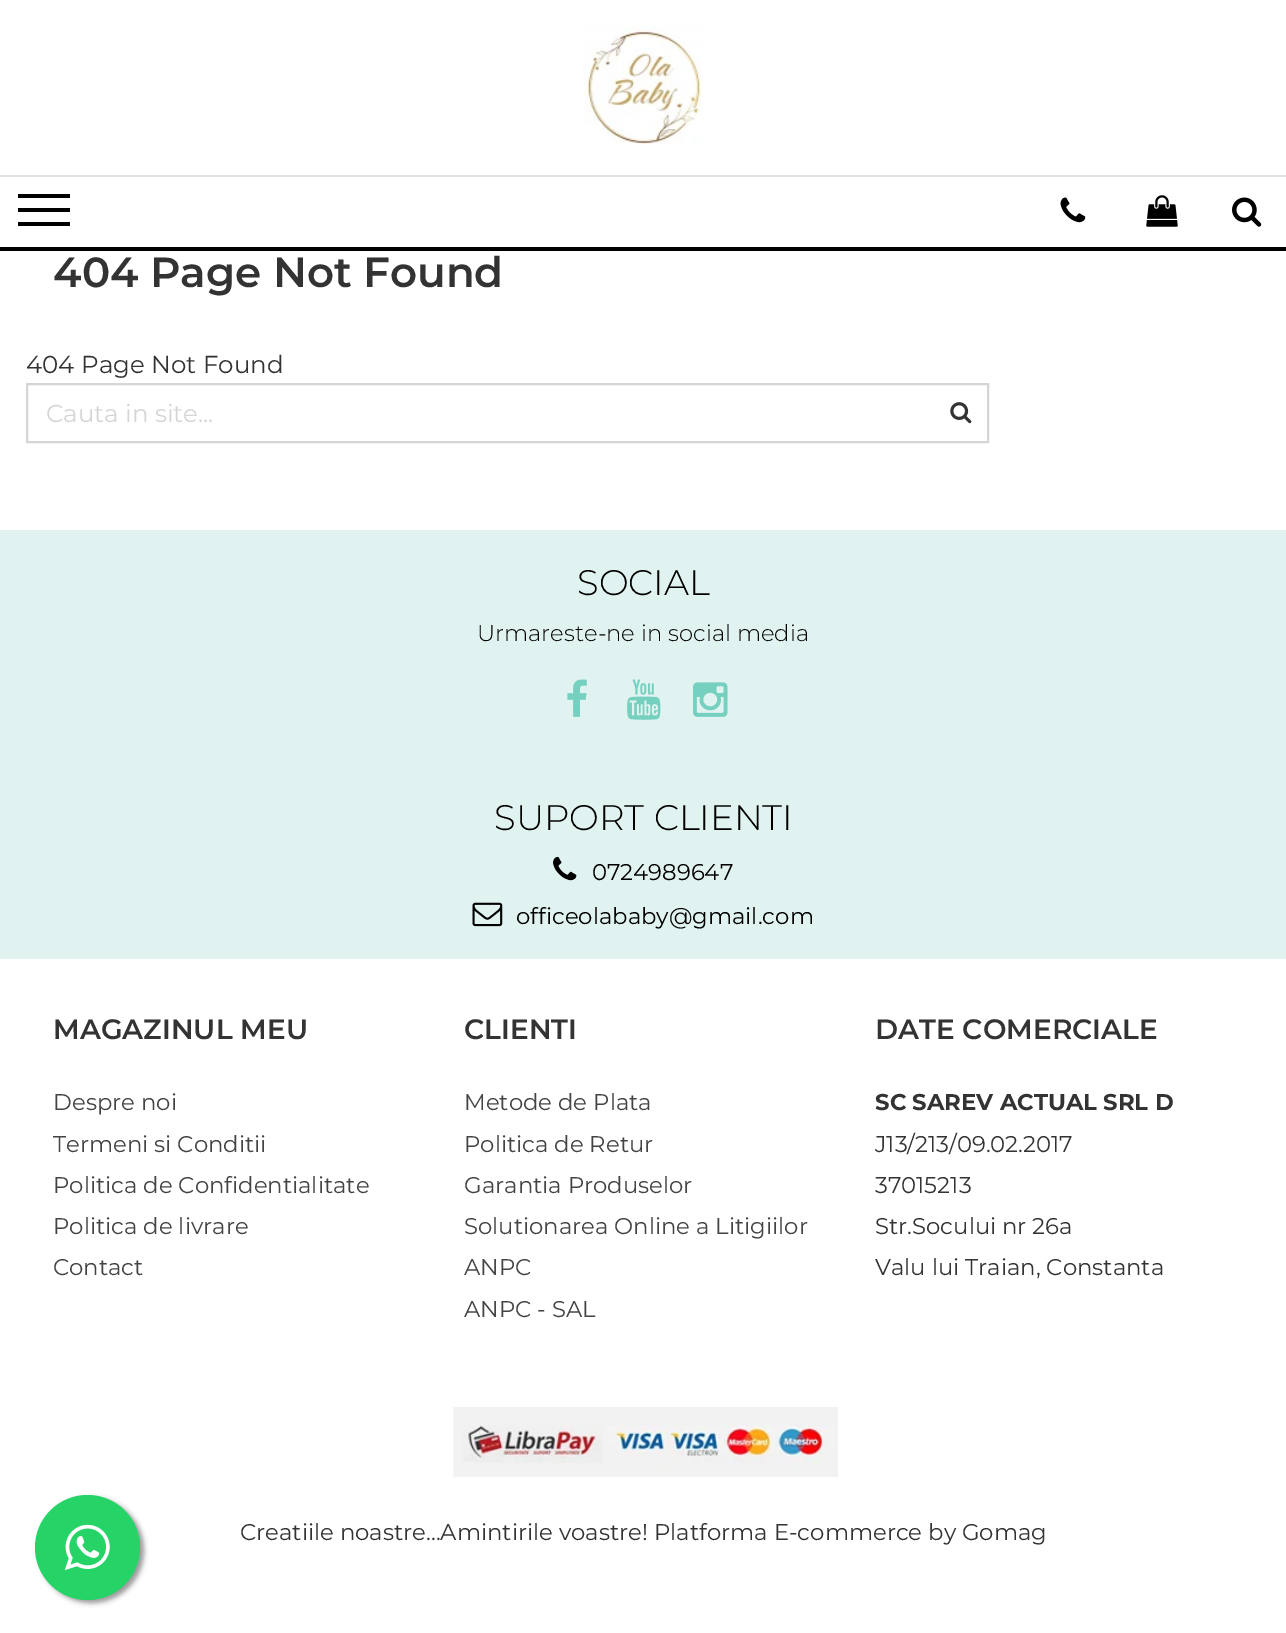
%!PS
<< /PageSize [1286 1633] /PageUsesTransparency true >> setpagedevice
/fl/fill load def
/lw/setlinewidth load def
/co { dup -16 bitshift 255 div exch dup -8 bitshift 255 and 255 div exch 255 and 255 div setrgbcolor } def
/fn { [ exch dup neg 0 0 3 -1 roll 0 0 ] selectfont } def
/tx { co fn moveto show } def
/bx { co rectfill } def
/al { dup .setfillconstantalpha .setstrokeconstantalpha } def
/ci { newpath 0 360 arc closepath } def
/rr { 5 dict begin { /r /h /w /y /x } { exch def } forall
  x r add y moveto x w add y 2 copy h add r arct x w add y h add x 1 index r arct
  x y h add x y r arct x y 2 copy exch w add exch r arct closepath end } def
/sh { 12 dict begin { /a /b /q /h /w /y /x } { exch def } forall gsave /was 0 def
  9 -2 -9 { dup b mul 4 div /e exch def 1 sub .425 mul 2.718 exch exp 1 add a .99 .min exch div /now exch def
    1 1 now sub 1 was sub div sub al /was now def
    w h .min e 2 mul add 0 gt { x e sub y e sub w e 2 mul add h e 2 mul add
      q e add b .6 mul add w h .min 2 div e add .min 0 .max rr fill } if } for grestore end } def
/im { 5 dict begin { /h /w /y /x /name } { exch def } forall
  gsave x y translate w h scale
  w h 8 [w 0 0 h 0 0] name (r) file false 3 colorimage grestore end } def
0 .pushpdf14devicefilter
0 1633 translate 1 -1 scale
4 setmiterlimit
0 0 1286 1633 16#FFFFFF bx
(media/1.raw) 583 26 119 119 im
0 175 1286 2 16#E1E1E1 bx
0 247 1286 4 16#000000 bx
18 208 52 4 16#000000 bx
18 194 52 4 16#000000 bx
18 222 52 4 16#000000 bx
(media/2.raw) 1060 197 26 26 im
(media/3.raw) 1146 195 32 32 im
(media/4.raw) 1232 197 30 30 im
16#D5D5D5 co
2 lw
27 384 961 58 rectstroke
(media/5.raw) 950 402 22 22 im
0 530 1286 429 16#E0F3F0 bx
(media/6.raw) 567 679 20 38 im
(media/7.raw) 627 679 34 41 im
(media/8.raw) 693 682 35 35 im
(media/9.raw) 553 856 24 25 im
(media/10.raw) 472 902 31 25 im
(media/11.raw) 453 1407 385 70 im
16#999999 co
39 1498 105 105 52.5 2.5 1 sh
16#25D366 co
87.5 1547.5 52.5 ci fl
(media/12.raw) 64 1524 46 47 im
(404 Page Not Found) 53 287 /Montserrat-SemiBold 42 16#333333 tx
(404 Page Not Found) 26 373 /Montserrat-Regular 24.5 16#333333 tx
(Cauta in site...) 46 422 /Montserrat-Regular 24.5 16#D5D5D5 tx
(SOCIAL) 577 595 /Montserrat-Light 35.5 16#000000 tx
(Urmareste-ne in social media) 477 641 /Montserrat-Light 22.75 16#000000 tx
(SUPORT CLIENTI) 494 830 /Montserrat-Light 35.5 16#000000 tx
(0724989647) 592 880 /Montserrat-Regular 22.75 16#000000 tx
(officeolababy@gmail.com) 516 924 /Montserrat-Regular 22.75 16#000000 tx
(MAGAZINUL MEU) 53 1039 /Montserrat-SemiBold 28 16#333333 tx
(Despre noi) 53 1110 /Montserrat-Regular 22.75 16#444444 tx
(Termeni si Conditii) 53 1152 /Montserrat-Regular 22.75 16#444444 tx
(Politica de Confidentialitate) 53 1193 /Montserrat-Regular 22.75 16#444444 tx
(Politica de livrare) 53 1234 /Montserrat-Regular 22.75 16#444444 tx
(Contact) 53 1275 /Montserrat-Regular 22.75 16#444444 tx
(CLIENTI) 464 1039 /Montserrat-SemiBold 28 16#333333 tx
(Metode de Plata) 464 1110 /Montserrat-Regular 22.75 16#444444 tx
(Politica de Retur) 464 1152 /Montserrat-Regular 22.75 16#444444 tx
(Garantia Produselor) 464 1193 /Montserrat-Regular 22.75 16#444444 tx
(Solutionarea Online a Litigiilor) 464 1234 /Montserrat-Regular 22.75 16#444444 tx
(ANPC) 464 1275 /Montserrat-Regular 22.75 16#444444 tx
(ANPC - SAL) 464 1317 /Montserrat-Regular 22.75 16#444444 tx
(DATE COMERCIALE) 875 1039 /Montserrat-SemiBold 28 16#333333 tx
(SC SAREV ACTUAL SRL D) 875 1110 /Montserrat-Bold 22.75 16#333333 tx
(J13/213/09.02.2017) 875 1152 /Montserrat-Regular 22.75 16#333333 tx
(37015213) 875 1193 /Montserrat-Regular 22.75 16#333333 tx
(Str.Socului nr 26a) 875 1234 /Montserrat-Regular 22.75 16#333333 tx
(Valu lui Traian, Constanta) 875 1275 /Montserrat-Regular 22.75 16#333333 tx
(Creatiile noastre...Amintirile voastre! Platforma E-commerce by Gomag) 240 1540 /Montserrat-Regular 22.75 16#333333 tx
.poppdf14devicefilter showpage
